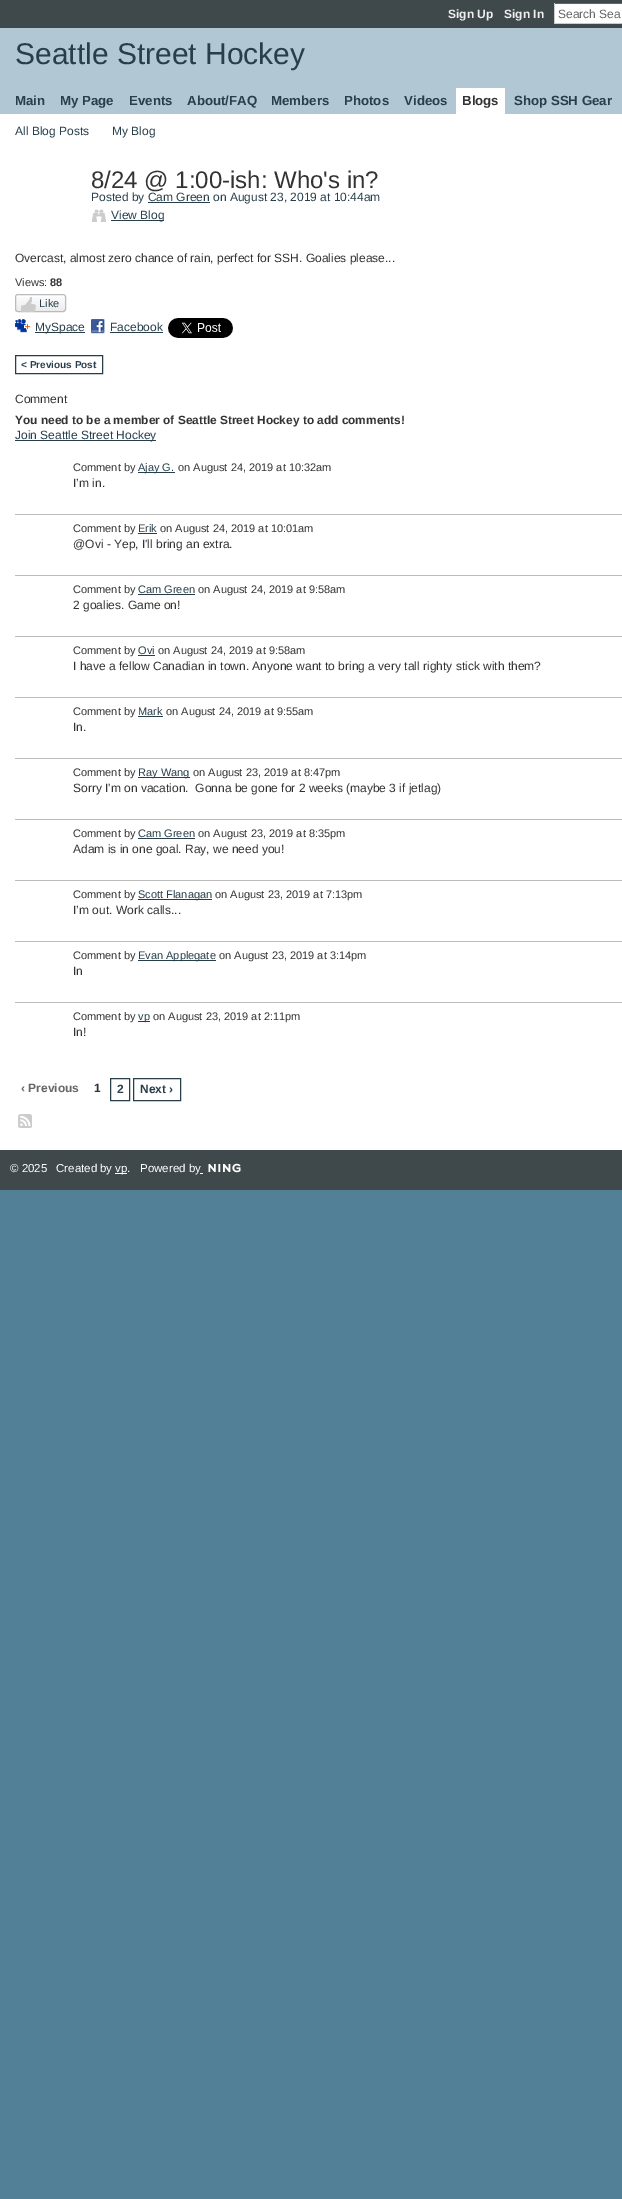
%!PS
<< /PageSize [622 2199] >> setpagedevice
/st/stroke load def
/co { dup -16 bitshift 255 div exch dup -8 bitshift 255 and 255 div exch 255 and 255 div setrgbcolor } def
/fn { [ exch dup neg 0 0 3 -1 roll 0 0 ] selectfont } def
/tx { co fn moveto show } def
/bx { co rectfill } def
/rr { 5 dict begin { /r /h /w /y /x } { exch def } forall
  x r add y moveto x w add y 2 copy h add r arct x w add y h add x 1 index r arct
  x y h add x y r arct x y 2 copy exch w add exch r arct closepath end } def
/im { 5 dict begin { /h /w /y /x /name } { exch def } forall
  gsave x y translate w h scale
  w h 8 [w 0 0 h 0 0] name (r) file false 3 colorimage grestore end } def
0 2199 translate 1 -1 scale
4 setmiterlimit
0 0 622 2199 16#528097 bx
0 0 622 28 16#3F484B bx
555 4 67 19 16#FFFFFF bx
554 3 68 1 16#666666 bx
554 23 68 1 16#CCCCCC bx
554 3 1 21 16#CCCCCC bx
0 28 622 86 16#B1C8D4 bx
456 88 49 26 16#FFFFFF bx
0 114 622 1036 16#FFFFFF bx
148 202 62 1 16#283F4B bx
(media/1.raw) 92 209 14 13 im
111 220 53 1 16#283F4B bx
(media/2.raw) 15 297 51 15 im
16#BBBBBB co
15.5 294.5 50 17 2.5 rr st
(media/3.raw) 21 297 15 15 im
(media/4.raw) 15 319 15 14 im
35 332 50 1 16#283F4B bx
(media/5.raw) 91 319 14 15 im
110 332 53 1 16#283F4B bx
(media/6.raw) 168 318 65 20 im
15.5 355.5 87 18 rectstroke
15 440 141 1 16#283F4B bx
15 514 607 1 16#BBBBBB bx
138 472 37 1 16#283F4B bx
15 575 607 1 16#BBBBBB bx
138 533 19 1 16#283F4B bx
15 636 607 1 16#BBBBBB bx
138 594 57 1 16#283F4B bx
15 697 607 1 16#BBBBBB bx
138 655 17 1 16#283F4B bx
15 758 607 1 16#BBBBBB bx
138 716 25 1 16#283F4B bx
15 819 607 1 16#BBBBBB bx
138 777 52 1 16#283F4B bx
15 880 607 1 16#BBBBBB bx
138 838 57 1 16#283F4B bx
15 941 607 1 16#BBBBBB bx
138 899 74 1 16#283F4B bx
15 1002 607 1 16#BBBBBB bx
138 960 78 1 16#283F4B bx
138 1021 12 1 16#283F4B bx
110.5 1078.5 19 22 rectstroke
133.5 1078.5 47 22 rectstroke
(media/7.raw) 18 1114 14 14 im
0 1150 622 40 16#3F484B bx
115 1173 12 1 16#FFFFFF bx
200 1173 3 1 16#FFFFFF bx
(media/8.raw) 208 1163 33 10 im
(Sign Up) 448 18 /LiberationSans-Bold 12 16#EEEEEE tx
(Sign In) 504 18 /LiberationSans-Bold 12 16#EEEEEE tx
(Search Sea) 558 18 /LiberationSans-Regular 12 16#666666 tx
(Seattle Street Hockey) 15 64 /LiberationSans-Regular 30 16#283F4B tx
(Main) 15 105 /LiberationSans-Bold 13.25 16#283F4B tx
(My Page) 60 105 /LiberationSans-Bold 13.25 16#283F4B tx
(Events) 129 105 /LiberationSans-Bold 13.25 16#283F4B tx
(About/FAQ) 187 105 /LiberationSans-Bold 13.25 16#283F4B tx
(Members) 271 105 /LiberationSans-Bold 13.25 16#283F4B tx
(Photos) 344 105 /LiberationSans-Bold 13.25 16#283F4B tx
(Videos) 404 105 /LiberationSans-Bold 13.25 16#283F4B tx
(Blogs) 462 105 /LiberationSans-Bold 13.25 16#333333 tx
(Shop SSH Gear) 514 105 /LiberationSans-Bold 13.25 16#283F4B tx
(All Blog Posts) 15 135 /LiberationSans-Regular 12 16#283F4B tx
(My Blog) 112 135 /LiberationSans-Regular 12 16#283F4B tx
(8/24 @ 1:00-ish: Who's in?) 91 188 /LiberationSans-Regular 24 16#333333 tx
(Posted by Cam Green on August 23, 2019 at 10:44am) 91 201 /LiberationSans-Regular 12 16#283F4B tx
(View Blog) 111 219 /LiberationSans-Regular 12 16#283F4B tx
(Overcast, almost zero chance of rain, perfect for SSH. Goalies please...) 15 262 /LiberationSans-Regular 12 16#333333 tx
(Views:) 15 286 /LiberationSans-Regular 11 16#333333 tx
(88) 50 286 /LiberationSans-Bold 11 16#333333 tx
(Like) 39 307 /LiberationSans-Regular 11 16#283F4B tx
(MySpace) 35 331 /LiberationSans-Regular 12 16#283F4B tx
(Facebook) 110 331 /LiberationSans-Regular 12 16#283F4B tx
(< Previous Post) 21 368 /LiberationSans-Bold 10 16#283F4B tx
(Comment) 15 403 /LiberationSans-Regular 12 16#333333 tx
(You need to be a member of Seattle Street Hockey to add comments!) 15 424 /LiberationSans-Bold 11.9 16#333333 tx
(Join Seattle Street Hockey) 15 439 /LiberationSans-Regular 12 16#283F4B tx
(Comment by) 73 471 /LiberationSans-Regular 11 16#333333 tx
(Ajay G.) 138 471 /LiberationSans-Regular 11 16#283F4B tx
(on August 24, 2019 at 10:32am) 178 471 /LiberationSans-Regular 11 16#333333 tx
(I’m in.) 73 487 /LiberationSans-Regular 12 16#333333 tx
(Comment by) 73 532 /LiberationSans-Regular 11 16#333333 tx
(Erik) 138 532 /LiberationSans-Regular 11 16#283F4B tx
(on August 24, 2019 at 10:01am) 160 532 /LiberationSans-Regular 11 16#333333 tx
(@Ovi - Yep, I'll bring an extra.) 73 548 /LiberationSans-Regular 12 16#333333 tx
(Comment by) 73 593 /LiberationSans-Regular 11 16#333333 tx
(Cam Green) 138 593 /LiberationSans-Regular 11 16#283F4B tx
(on August 24, 2019 at 9:58am) 198 593 /LiberationSans-Regular 11 16#333333 tx
(2 goalies. Game on!) 73 609 /LiberationSans-Regular 12 16#333333 tx
(Comment by) 73 654 /LiberationSans-Regular 11 16#333333 tx
(Ovi) 138 654 /LiberationSans-Regular 11 16#283F4B tx
(on August 24, 2019 at 9:58am) 158 654 /LiberationSans-Regular 11 16#333333 tx
(I have a fellow Canadian in town. Anyone want to bring a very tall righty stick with them?) 73 670 /LiberationSans-Regular 12 16#333333 tx
(Comment by) 73 715 /LiberationSans-Regular 11 16#333333 tx
(Mark) 138 715 /LiberationSans-Regular 11 16#283F4B tx
(on August 24, 2019 at 9:55am) 166 715 /LiberationSans-Regular 11 16#333333 tx
(In.) 73 731 /LiberationSans-Regular 12 16#333333 tx
(Comment by) 73 776 /LiberationSans-Regular 11 16#333333 tx
(Ray Wang) 138 776 /LiberationSans-Regular 11 16#283F4B tx
(on August 23, 2019 at 8:47pm) 193 776 /LiberationSans-Regular 11 16#333333 tx
(Sorry I'm on vacation.  Gonna be gone for 2 weeks \(maybe 3 if jetlag\)) 73 792 /LiberationSans-Regular 12 16#333333 tx
(Comment by) 73 837 /LiberationSans-Regular 11 16#333333 tx
(Cam Green) 138 837 /LiberationSans-Regular 11 16#283F4B tx
(on August 23, 2019 at 8:35pm) 198 837 /LiberationSans-Regular 11 16#333333 tx
(Adam is in one goal. Ray, we need you!) 73 853 /LiberationSans-Regular 12 16#333333 tx
(Comment by) 73 898 /LiberationSans-Regular 11 16#333333 tx
(Scott Flanagan) 138 898 /LiberationSans-Regular 11 16#283F4B tx
(on August 23, 2019 at 7:13pm) 215 898 /LiberationSans-Regular 11 16#333333 tx
(I’m out. Work calls...) 73 914 /LiberationSans-Regular 12 16#333333 tx
(Comment by) 73 959 /LiberationSans-Regular 11 16#333333 tx
(Evan Applegate) 138 959 /LiberationSans-Regular 11 16#283F4B tx
(on August 23, 2019 at 3:14pm) 219 959 /LiberationSans-Regular 11 16#333333 tx
(In) 73 975 /LiberationSans-Regular 12 16#333333 tx
(Comment by) 73 1020 /LiberationSans-Regular 11 16#333333 tx
(vp) 138 1020 /LiberationSans-Regular 11 16#283F4B tx
(on August 23, 2019 at 2:11pm) 153 1020 /LiberationSans-Regular 11 16#333333 tx
(In!) 73 1036 /LiberationSans-Regular 12 16#333333 tx
(‹ Previous) 21 1092 /LiberationSans-Bold 12 16#666666 tx
(1) 94 1092 /LiberationSans-Bold 12 16#333333 tx
(2) 117 1093 /LiberationSans-Bold 12 16#283F4B tx
(Next ›) 140 1093 /LiberationSans-Bold 12 16#283F4B tx
(© 2025) 10 1172 /LiberationSans-Regular 11.5 16#FFFFFF tx
(Created by) 56 1172 /LiberationSans-Regular 11.5 16#FFFFFF tx
(vp.) 115 1172 /LiberationSans-Regular 11.5 16#FFFFFF tx
(Powered by) 140 1172 /LiberationSans-Regular 11.5 16#FFFFFF tx
showpage
